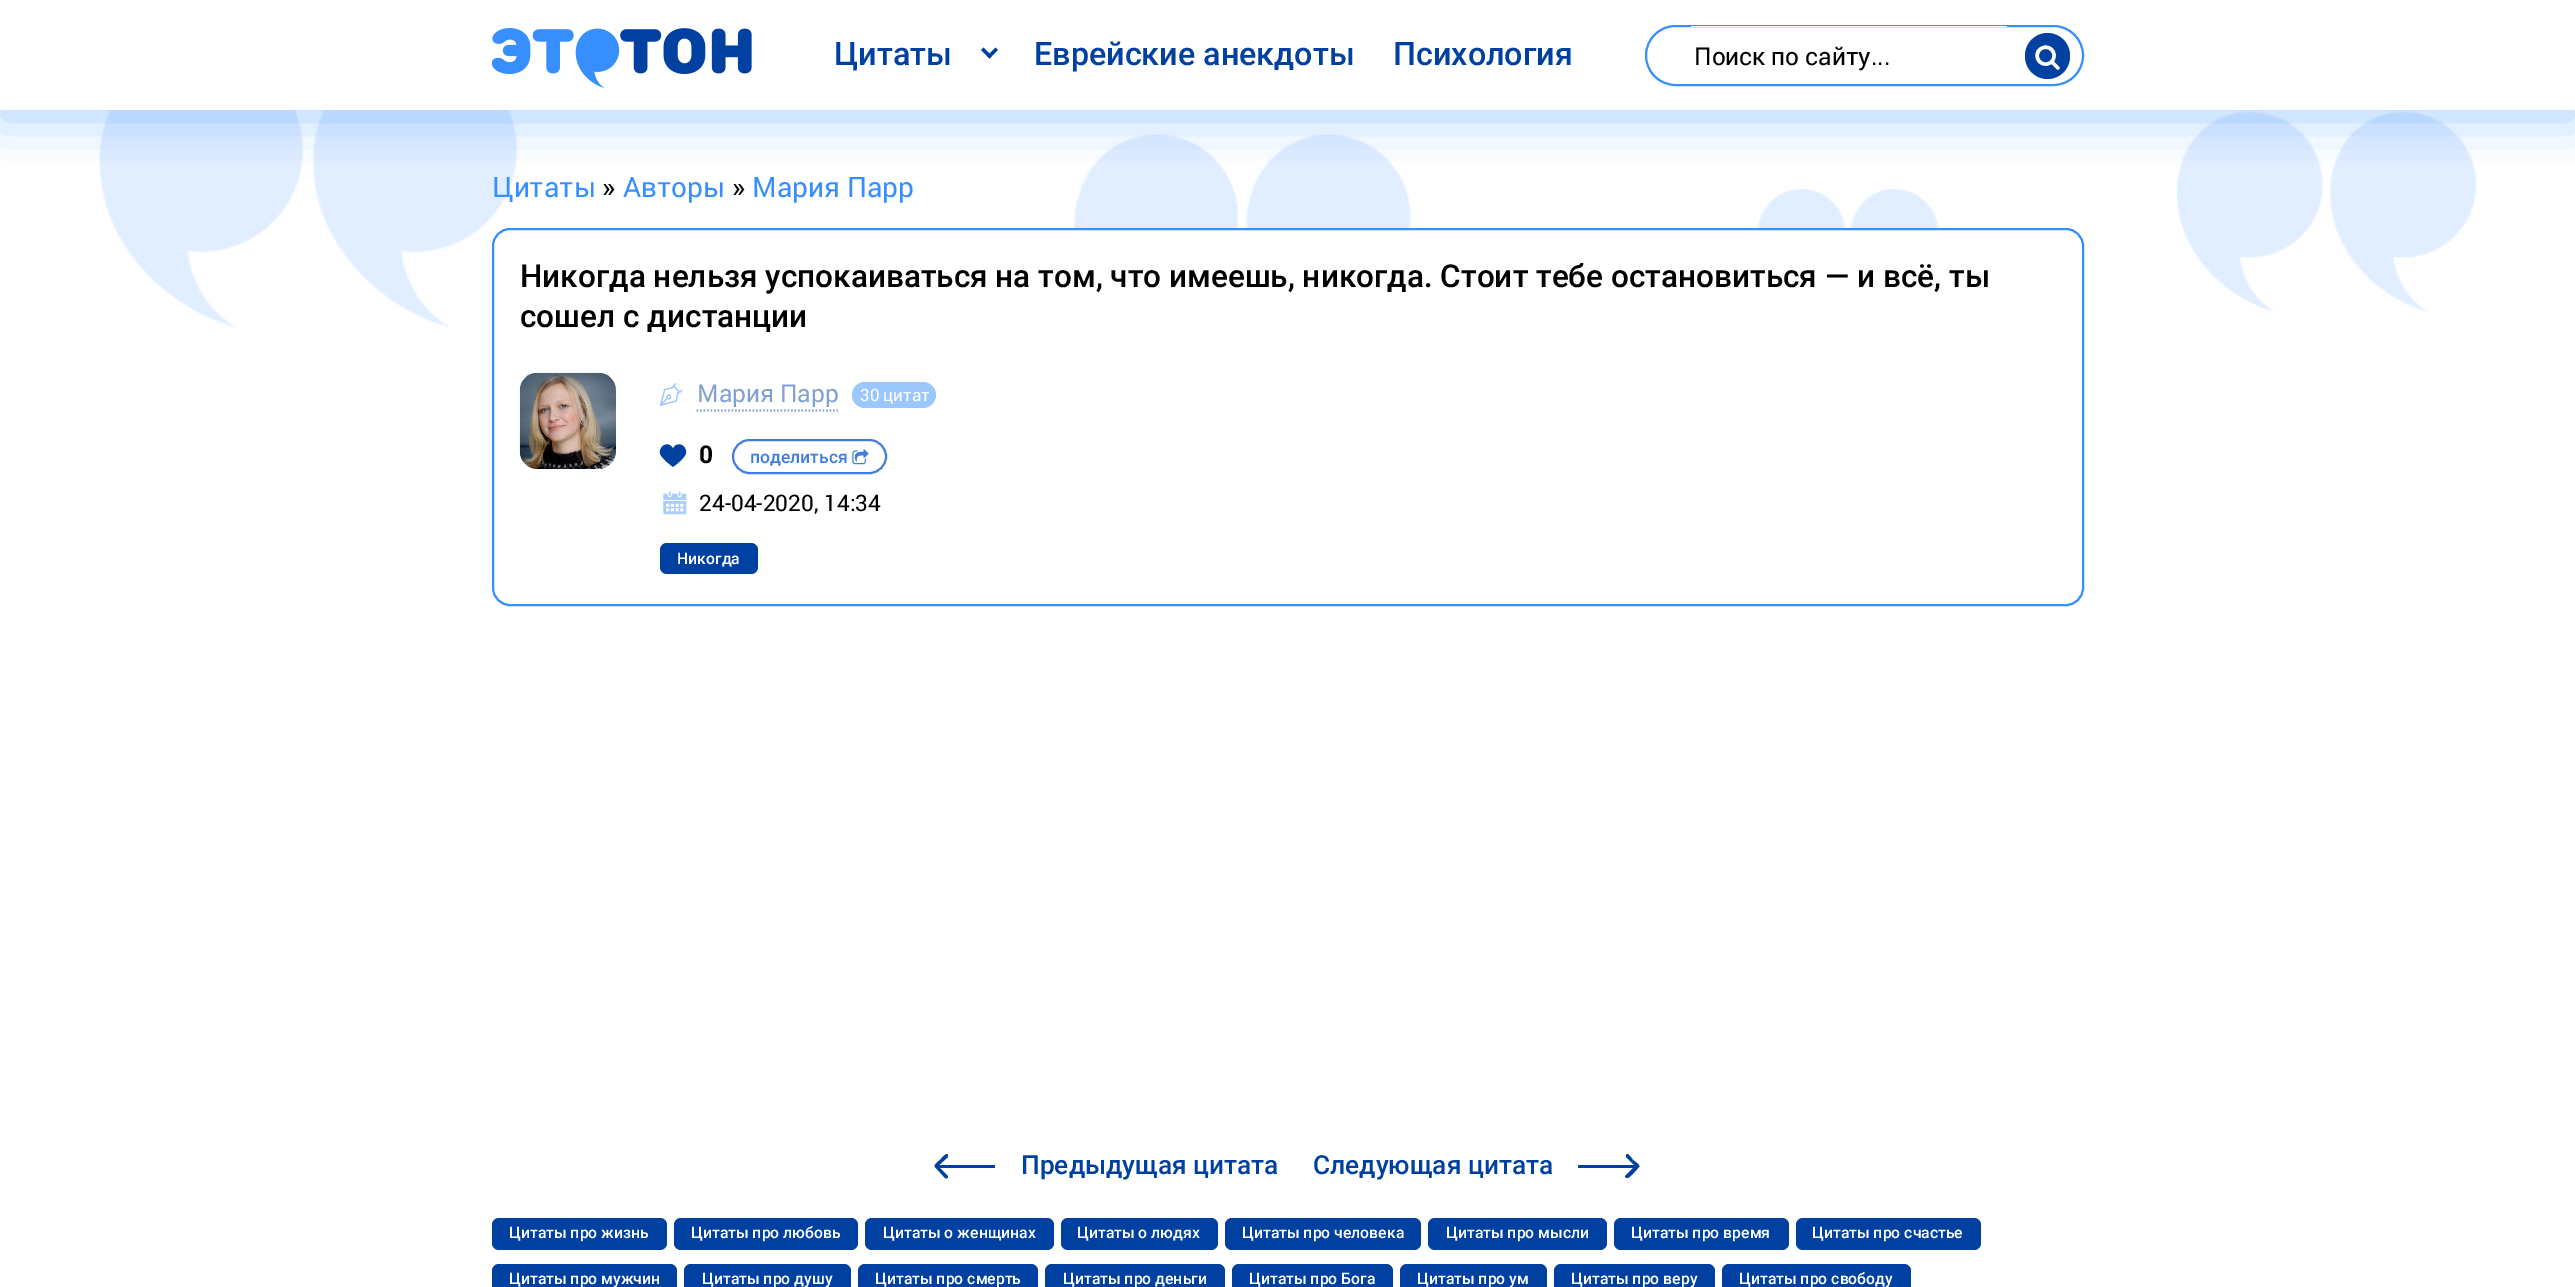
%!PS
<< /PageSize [2575 1287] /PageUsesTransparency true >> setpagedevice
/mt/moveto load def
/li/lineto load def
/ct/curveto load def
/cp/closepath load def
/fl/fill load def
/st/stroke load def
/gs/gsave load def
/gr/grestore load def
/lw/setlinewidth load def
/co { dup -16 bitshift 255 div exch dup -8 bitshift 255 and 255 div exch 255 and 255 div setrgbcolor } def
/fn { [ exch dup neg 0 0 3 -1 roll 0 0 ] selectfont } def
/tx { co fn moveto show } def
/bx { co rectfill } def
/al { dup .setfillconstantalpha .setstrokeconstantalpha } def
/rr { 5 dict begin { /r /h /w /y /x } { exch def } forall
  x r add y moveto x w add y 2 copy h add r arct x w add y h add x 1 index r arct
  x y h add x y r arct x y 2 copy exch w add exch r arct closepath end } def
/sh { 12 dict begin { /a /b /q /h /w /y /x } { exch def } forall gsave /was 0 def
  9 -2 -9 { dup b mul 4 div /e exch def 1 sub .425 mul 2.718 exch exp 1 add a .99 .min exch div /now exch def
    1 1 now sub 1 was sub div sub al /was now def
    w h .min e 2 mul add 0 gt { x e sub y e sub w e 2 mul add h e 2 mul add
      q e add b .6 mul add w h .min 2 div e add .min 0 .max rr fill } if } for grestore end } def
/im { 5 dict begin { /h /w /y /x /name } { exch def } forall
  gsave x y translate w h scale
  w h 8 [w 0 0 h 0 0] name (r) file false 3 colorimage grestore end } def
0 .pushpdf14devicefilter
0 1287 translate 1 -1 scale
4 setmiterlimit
0 0 2575 1287 16#FFFFFF bx
(media/3.raw) 99 110 2378 219 im
gs
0 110 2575 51 rectclip
16#378EFF co
0 7 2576 110 0 26 .45 sh
gr
(media/1.raw) 492 28 260 61 im
16#0040A1 co
987 56 mt 995.5 47.5 li 998 50 li 989.5 58.5 li cp fl
981 50 mt 983.5 47.5 li 992 56 li 989.5 58.5 li cp fl
16#378EFF co
2 lw
1646 26 437 59 29.5 rr st
1691 26 316 1 16#FFFFFF bx
16#0040A1 co
2025 33 45 46 22.5 rr fl
(media/2.raw) 2035 45 25 25 im
16#FFFFFF co
493 229 1590 376 17 rr gs fl gr
16#378EFF co
st
(media/4.raw) 519 372 97 97 im
(media/5.raw) 659 383 24 23 im
16#80A0D0 co
1.8 lw
[1.75 1.75] 0 setdash
696.5 410.5 mt 838 410.5 li st
16#9BC7FF co
852 382 84 26 13 rr fl
(media/6.raw) 659 444 28 23 im
16#407FE0 co
2 lw
[] 0 setdash
733 440 153 33 16.5 rr st
(media/7.raw) 852 449 17 16 im
(media/8.raw) 663 491 24 24 im
16#0040A1 co
660 543 98 31 7 rr fl
935 1167 mt 933 1165 939 1161 940 1160 ct 940 1160 947 1151 948 1155 ct 948 1157 li 938 1166 li 948 1176 li 948 1178 947 1179 945 1178 ct cp 995 1168 mt 936 1168 li 936 1165 li 995 1165 li cp fl
1639 1167 mt 1641 1165 1634 1161 1633 1160 ct 1633 1160 1627 1151 1626 1155 ct 1626 1157 li 1635 1166 li 1625 1176 li 1625 1177 1626 1178 1627 1178 ct 1629 1179 1637 1169 1639 1167 ct cp 1578 1168 mt 1637 1168 li 1637 1165 li 1578 1165 li cp fl
492 1218 175 32 7 rr fl
674 1218 184 32 7 rr fl
865 1218 189 32 7 rr fl
1061 1218 157 32 7 rr fl
1225 1218 196 32 7 rr fl
1428 1218 179 32 7 rr fl
1614 1218 175 32 7 rr fl
1796 1218 185 32 7 rr fl
492 1264 185 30 7 rr fl
684 1264 167 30 7 rr fl
858 1264 180 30 7 rr fl
1045 1264 180 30 7 rr fl
1232 1264 161 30 7 rr fl
1400 1264 147 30 7 rr fl
1554 1264 161 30 7 rr fl
1722 1264 189 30 7 rr fl
(Цитаты) 834 65 /Roboto-Medium 32.25 16#0040A1 tx
(Еврейские анекдоты) 1034 65 /Roboto-Medium 32.25 16#0040A1 tx
(Психология) 1393 65 /Roboto-Medium 32.25 16#0040A1 tx
(Поиск по сайту...) 1694 65 /Roboto-Regular 24.5 16#000000 tx
(Цитаты) 492 197 /Roboto-Regular 28 16#378EFF tx
(») 602 197 /Roboto-Regular 28 16#000000 tx
(Авторы) 623 197 /Roboto-Regular 28 16#378EFF tx
(») 732 197 /Roboto-Regular 28 16#000000 tx
(Мария Парр) 752 197 /Roboto-Regular 28 16#378EFF tx
(Никогда нельзя успокаиваться на том, что имеешь, никогда. Стоит тебе остановиться — и всё, ты) 520 287 /Roboto-Medium 31.5 16#000000 tx
(сошел с дистанции) 520 327 /Roboto-Medium 31.5 16#000000 tx
(Мария Парр) 697 402 /Roboto-Regular 24.5 16#80A0D0 tx
(30 цитат) 860 401 /Roboto-Regular 17 16#FFFFFF tx
(0) 699 463 /Roboto-Bold 24.5 16#000000 tx
(поделиться) 750 463 /Roboto-Medium 17.5 16#407FE0 tx
(24-04-2020, 14:34) 699 511 /Roboto-Regular 22.75 16#000000 tx
(Никогда) 677 564 /Roboto-Medium 15.75 16#FFFFFF tx
(Предыдущая цитата) 1021 1174 /Roboto-Medium 26.25 16#0040A1 tx
(Следующая цитата) 1313 1174 /Roboto-Medium 26.25 16#0040A1 tx
(Цитаты про жизнь) 509 1238 /Roboto-Medium 15.75 16#FFFFFF tx
(Цитаты про любовь) 691 1238 /Roboto-Medium 15.75 16#FFFFFF tx
(Цитаты о женщинах) 883 1238 /Roboto-Medium 15.75 16#FFFFFF tx
(Цитаты о людях) 1077 1238 /Roboto-Medium 15.75 16#FFFFFF tx
(Цитаты про человека) 1242 1238 /Roboto-Medium 15.75 16#FFFFFF tx
(Цитаты про мысли) 1446 1238 /Roboto-Medium 15.75 16#FFFFFF tx
(Цитаты про время) 1631 1238 /Roboto-Medium 15.75 16#FFFFFF tx
(Цитаты про счастье) 1812 1238 /Roboto-Medium 15.75 16#FFFFFF tx
(Цитаты про мужчин) 509 1284 /Roboto-Medium 15.75 16#FFFFFF tx
(Цитаты про душу) 702 1284 /Roboto-Medium 15.75 16#FFFFFF tx
(Цитаты про смерть) 875 1284 /Roboto-Medium 15.75 16#FFFFFF tx
(Цитаты про деньги) 1063 1284 /Roboto-Medium 15.75 16#FFFFFF tx
(Цитаты про Бога) 1249 1284 /Roboto-Medium 15.75 16#FFFFFF tx
(Цитаты про ум) 1417 1284 /Roboto-Medium 15.75 16#FFFFFF tx
(Цитаты про веру) 1571 1284 /Roboto-Medium 15.75 16#FFFFFF tx
(Цитаты про свободу) 1739 1284 /Roboto-Medium 15.75 16#FFFFFF tx
.poppdf14devicefilter showpage
